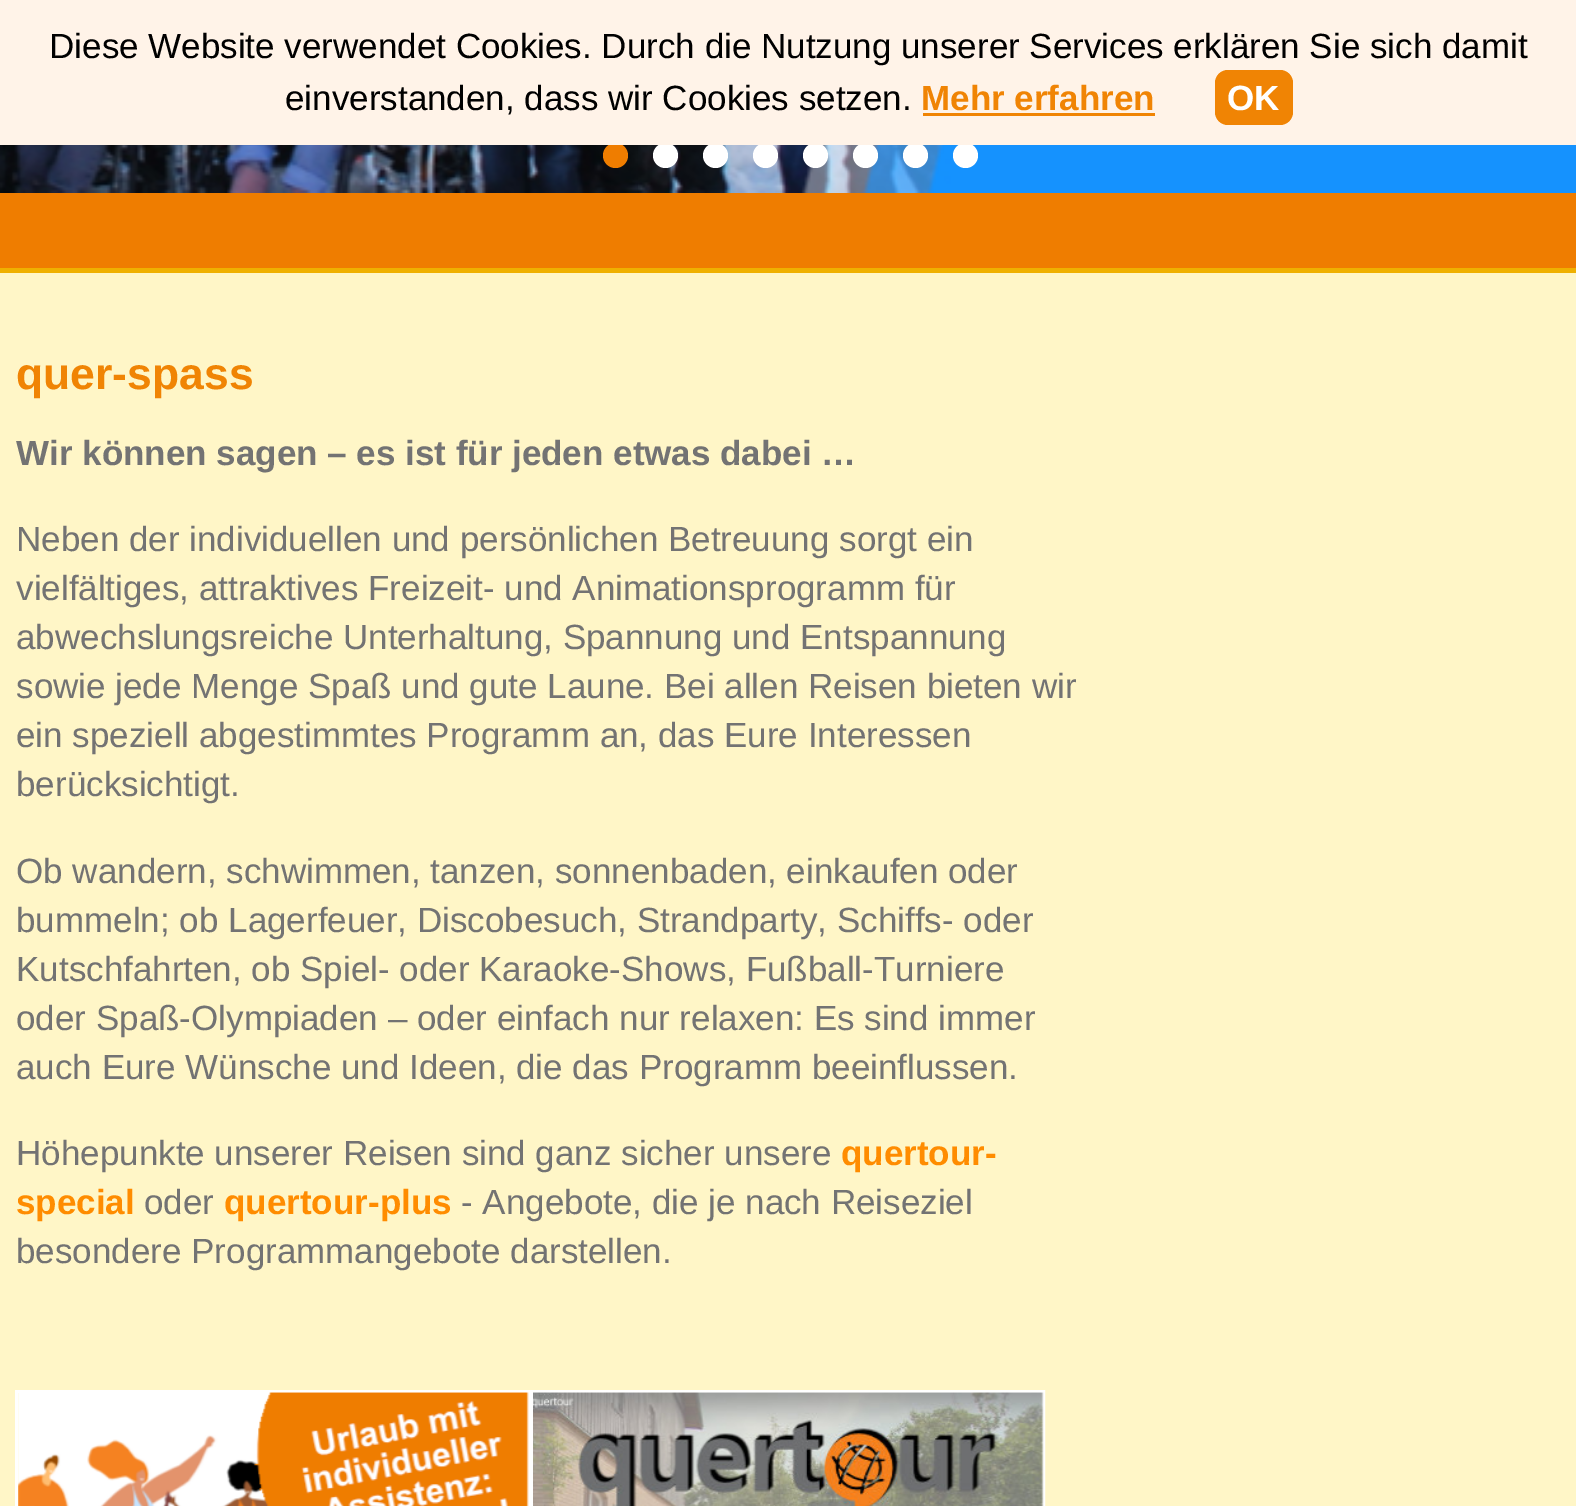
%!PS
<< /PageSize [1576 1506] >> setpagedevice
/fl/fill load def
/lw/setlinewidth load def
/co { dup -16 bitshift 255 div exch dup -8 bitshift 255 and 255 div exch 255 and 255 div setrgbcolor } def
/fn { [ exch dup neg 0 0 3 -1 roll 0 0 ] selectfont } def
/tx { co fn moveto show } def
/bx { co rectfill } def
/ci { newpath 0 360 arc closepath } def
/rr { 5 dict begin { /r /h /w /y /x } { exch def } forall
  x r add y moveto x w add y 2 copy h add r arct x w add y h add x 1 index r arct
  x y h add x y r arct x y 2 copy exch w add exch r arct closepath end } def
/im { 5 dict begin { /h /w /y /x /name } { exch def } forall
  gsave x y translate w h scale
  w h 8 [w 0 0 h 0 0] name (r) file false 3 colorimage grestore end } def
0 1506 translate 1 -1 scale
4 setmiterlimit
0 0 1576 1506 16#FFF6C7 bx
(media/1.raw) 0 145 1576 48 im
16#EF7D00 co
615.5 155.5 12.5 ci fl
16#FFFFFF co
665.5 155.5 12.5 ci fl
715.5 155.5 12.5 ci fl
765.5 155.5 12.5 ci fl
815.5 155.5 12.5 ci fl
865.5 155.5 12.5 ci fl
915.5 155.5 12.5 ci fl
965.5 155.5 12.5 ci fl
0 0 1576 145 16#FFF3E8 bx
923 113 232 3 16#F08404 bx
1215 70 78 55 13 rr fl
0 193 1576 75 16#EF7D00 bx
0 268 1576 5 16#EFB000 bx
16#FFFFFF co
3 lw
16.5 1391.5 512 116 rectstroke
(media/2.raw) 18 1392 511 114 im
531.5 1391.5 512 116 rectstroke
(media/3.raw) 533 1392 511 114 im
(Diese Website verwendet Cookies. Durch die Nutzung unserer Services erklären Sie sich damit) 49 58 /LiberationSans-Regular 35 16#000000 tx
(einverstanden, dass wir Cookies setzen.) 285 110 /LiberationSans-Regular 35 16#000000 tx
(Mehr erfahren) 921 110 /LiberationSans-Bold 35 16#F08404 tx
(OK) 1227 110 /LiberationSans-Bold 35 16#FFFFFF tx
(quer-spass) 16 389 /LiberationSans-Bold 44.5 16#F08404 tx
(Wir können sagen – es ist für jeden etwas dabei …) 16 465 /LiberationSans-Bold 35 16#737373 tx
(Neben der individuellen und persönlichen Betreuung sorgt ein) 16 551 /LiberationSans-Regular 35 16#737373 tx
(vielfältiges, attraktives Freizeit- und Animationsprogramm für) 16 600 /LiberationSans-Regular 35 16#737373 tx
(abwechslungsreiche Unterhaltung, Spannung und Entspannung) 16 649 /LiberationSans-Regular 35 16#737373 tx
(sowie jede Menge Spaß und gute Laune. Bei allen Reisen bieten wir) 16 698 /LiberationSans-Regular 35 16#737373 tx
(ein speziell abgestimmtes Programm an, das Eure Interessen) 16 747 /LiberationSans-Regular 35 16#737373 tx
(berücksichtigt.) 16 796 /LiberationSans-Regular 35 16#737373 tx
(Ob wandern, schwimmen, tanzen, sonnenbaden, einkaufen oder) 16 883 /LiberationSans-Regular 35 16#737373 tx
(bummeln; ob Lagerfeuer, Discobesuch, Strandparty, Schiffs- oder) 16 932 /LiberationSans-Regular 35 16#737373 tx
(Kutschfahrten, ob Spiel- oder Karaoke-Shows, Fußball-Turniere) 16 981 /LiberationSans-Regular 35 16#737373 tx
(oder Spaß-Olympiaden – oder einfach nur relaxen: Es sind immer) 16 1030 /LiberationSans-Regular 35 16#737373 tx
(auch Eure Wünsche und Ideen, die das Programm beeinflussen.) 16 1079 /LiberationSans-Regular 35 16#737373 tx
(Höhepunkte unserer Reisen sind ganz sicher unsere) 16 1165 /LiberationSans-Regular 35 16#737373 tx
(quertour-) 841 1165 /LiberationSans-Bold 35 16#FF8C00 tx
(special) 16 1214 /LiberationSans-Bold 35 16#FF8C00 tx
(oder) 144 1214 /LiberationSans-Regular 35 16#737373 tx
(quertour-plus) 224 1214 /LiberationSans-Bold 35 16#FF8C00 tx
(- Angebote, die je nach Reiseziel) 461 1214 /LiberationSans-Regular 35 16#737373 tx
(besondere Programmangebote darstellen.) 16 1263 /LiberationSans-Regular 35 16#737373 tx
showpage
